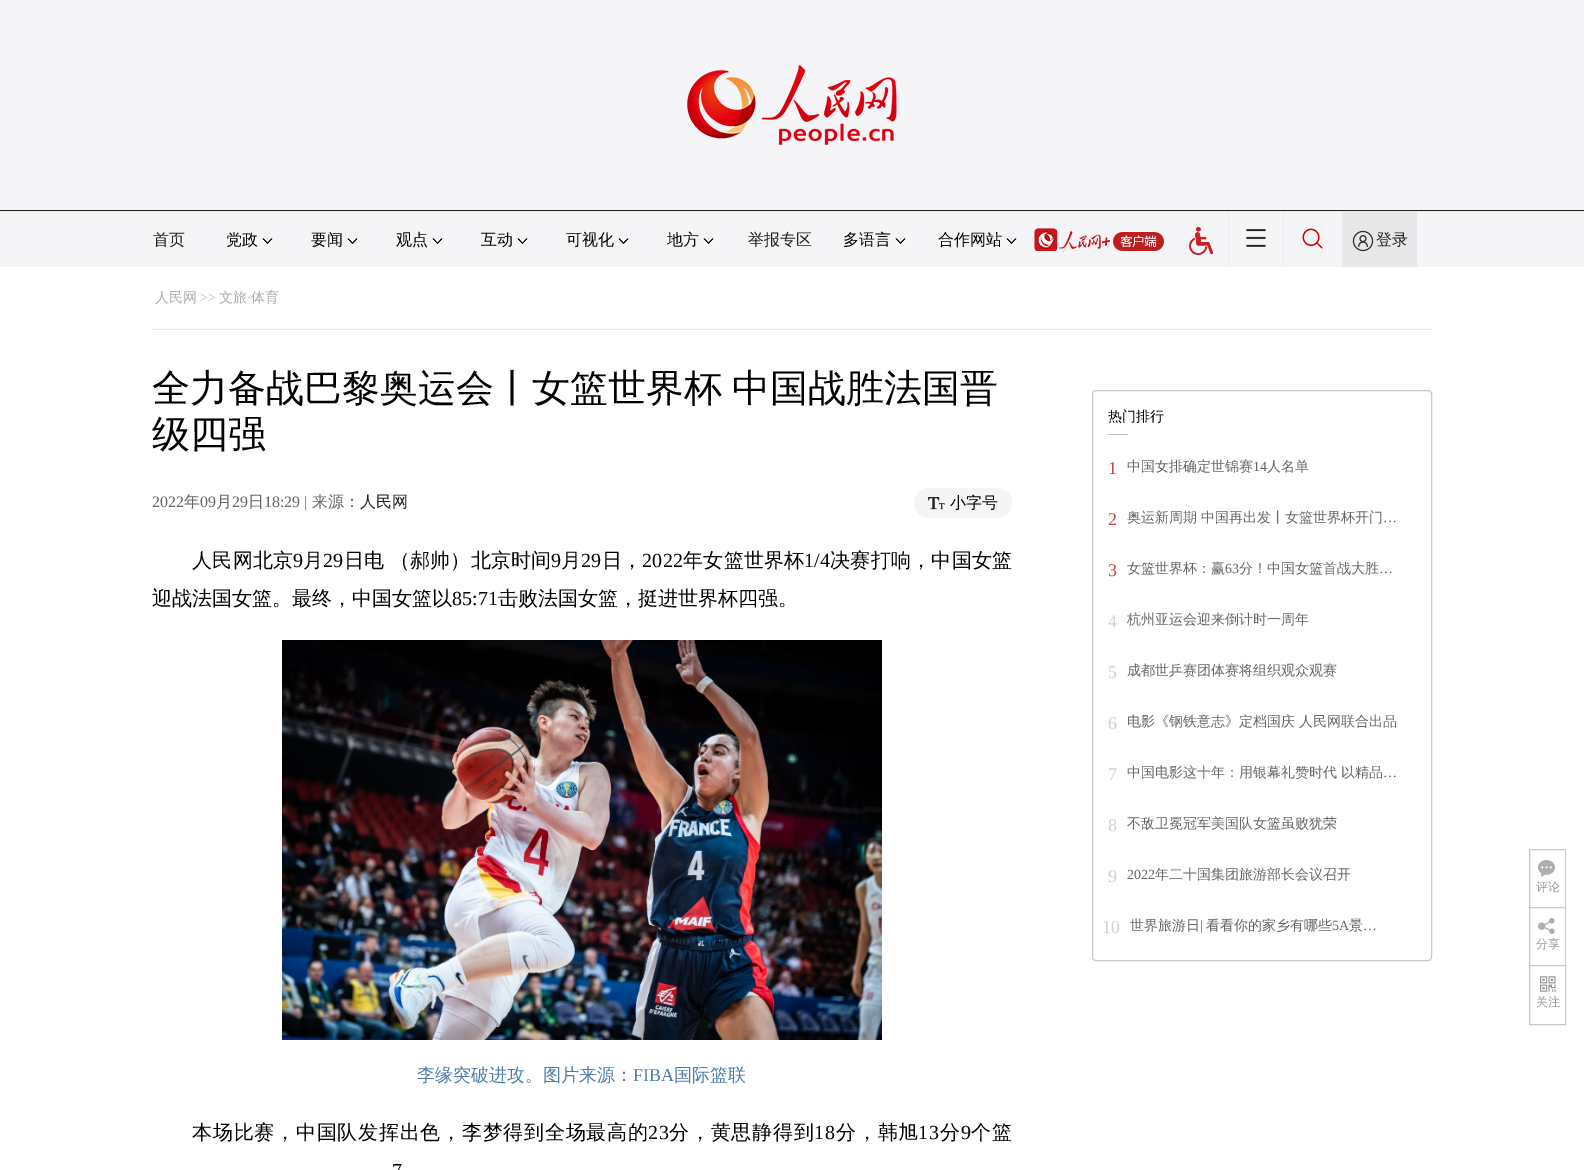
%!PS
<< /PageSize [1584 1170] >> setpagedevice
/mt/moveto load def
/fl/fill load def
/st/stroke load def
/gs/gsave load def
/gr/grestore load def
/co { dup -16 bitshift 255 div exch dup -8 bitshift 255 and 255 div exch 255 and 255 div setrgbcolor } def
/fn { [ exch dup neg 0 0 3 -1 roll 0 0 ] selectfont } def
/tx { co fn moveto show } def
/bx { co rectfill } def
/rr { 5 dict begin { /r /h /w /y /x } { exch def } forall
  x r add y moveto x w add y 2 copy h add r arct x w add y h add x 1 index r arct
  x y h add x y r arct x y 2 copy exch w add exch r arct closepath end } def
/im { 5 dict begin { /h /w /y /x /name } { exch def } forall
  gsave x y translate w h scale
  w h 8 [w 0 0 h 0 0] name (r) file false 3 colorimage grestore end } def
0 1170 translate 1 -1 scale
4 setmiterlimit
0 0 1584 1170 16#FFFFFF bx
0 0 1584 210 16#F5F5F7 bx
0 210 1584 1 16#212121 bx
(media/1.raw) 687 65 210 80 im
0 211 1584 1 16#E9E9E9 bx
0 212 1584 55 16#F5F5F7 bx
(media/2.raw) 262 238 11 6 im
(media/2.raw) 347 238 11 6 im
(media/2.raw) 432 238 11 6 im
(media/2.raw) 517 238 11 6 im
(media/2.raw) 618 238 11 6 im
(media/2.raw) 703 238 11 6 im
(media/2.raw) 895 238 11 6 im
(media/2.raw) 1006 238 11 6 im
(media/3.raw) 1034 228 130 23 im
(media/4.raw) 1189 227 24 28 im
1283 212 1 55 16#EBEBED bx
1228 212 1 55 16#EBEBED bx
(media/5.raw) 1246 229 20 18 im
(media/6.raw) 1302 228 22 22 im
1342 212 75 55 16#E8E8EA bx
(media/7.raw) 1352 230 22 22 im
152 329 1280 1 16#ECECEC bx
16#F5F5F7 co
914 488 98 30 15 rr fl
(media/8.raw) 928 497 17 13 im
(media/9.raw) 282 640 600 400 im
16#C9C9C9 co
1092.5 390.5 339 570 3.5 rr st
1108 434 20 1 16#C1C1C1 bx
gs
1529 849 37 58 rectclip
16#C9C9C9 co
1529.5 849.5 36 60 rectstroke
gr
(media/10.raw) 1538 860 17 17 im
gs
1529 907 37 58 rectclip
16#C9C9C9 co
1529.5 907.5 36 59 rectstroke
gr
(media/11.raw) 1538 918 17 16 im
16#C9C9C9 co
1529.5 965.5 36 59 rectstroke
(media/12.raw) 1540 976 16 16 im
(首页) 153 245 /WenQuanYiZenHei-Medium 16 16#212121 tx
(党政) 226 245 /WenQuanYiZenHei-Medium 16 16#000000 tx
(要闻) 311 245 /WenQuanYiZenHei-Medium 16 16#000000 tx
(观点) 396 245 /WenQuanYiZenHei-Medium 16 16#000000 tx
(互动) 481 245 /WenQuanYiZenHei-Medium 16 16#000000 tx
(可视化) 566 245 /WenQuanYiZenHei-Medium 16 16#000000 tx
(地方) 667 245 /WenQuanYiZenHei-Medium 16 16#000000 tx
(举报专区) 748 245 /WenQuanYiZenHei-Medium 16 16#212121 tx
(多语言) 843 245 /WenQuanYiZenHei-Medium 16 16#000000 tx
(合作网站) 938 245 /WenQuanYiZenHei-Medium 16 16#000000 tx
(登录) 1376 245 /WenQuanYiZenHei-Medium 16 16#212121 tx
(人民网) 155 302 /WenQuanYiZenHei-Medium 14 16#ADADAD tx
(>>) 200 302 /LiberationSerif-Regular 14 16#ADADAD tx
(文旅) 219 302 /WenQuanYiZenHei-Medium 14 16#ADADAD tx
(·) 247 302 /LiberationSerif-Regular 14 16#ADADAD tx
(体育) 251 302 /WenQuanYiZenHei-Medium 14 16#ADADAD tx
(全力备战巴黎奥运会丨女篮世界杯) 152 401 /WenQuanYiZenHei-Medium 38 16#000000 tx
(中国战胜法国晋) 732 401 /WenQuanYiZenHei-Medium 38 16#000000 tx
(级四强) 152 447 /WenQuanYiZenHei-Medium 38 16#000000 tx
(2022) 152 507 /LiberationSerif-Regular 16 16#666666 tx
(年) 184 507 /WenQuanYiZenHei-Medium 16 16#666666 tx
(09) 200 507 /LiberationSerif-Regular 16 16#666666 tx
(月) 216 507 /WenQuanYiZenHei-Medium 16 16#666666 tx
(29) 232 507 /LiberationSerif-Regular 16 16#666666 tx
(日) 248 507 /WenQuanYiZenHei-Medium 16 16#666666 tx
(18:29 |) 264 507 /LiberationSerif-Regular 16 16#666666 tx
(来源：) 312 507 /WenQuanYiZenHei-Medium 16 16#666666 tx
(人民网) 360 507 /WenQuanYiZenHei-Medium 16 16#212121 tx
(小字号) 950 508 /WenQuanYiZenHei-Medium 16 16#000000 tx
/WenQuanYiZenHei-Medium 20 fn
192 567 mt .25 0 (人民网北京) ashow
/LiberationSerif-Regular 20 fn
293 567 mt .25 0 (9) ashow
/WenQuanYiZenHei-Medium 20 fn
303 567 mt .25 0 (月) ashow
/LiberationSerif-Regular 20 fn
323 567 mt .25 0 (29) ashow
/WenQuanYiZenHei-Medium 20 fn
344 567 mt -1 0 32 .25 0 (日电 （郝帅）北京时间) awidthshow
/LiberationSerif-Regular 20 fn
551 567 mt .25 0 (9) ashow
/WenQuanYiZenHei-Medium 20 fn
561 567 mt .25 0 (月) ashow
/LiberationSerif-Regular 20 fn
581 567 mt .25 0 (29) ashow
/WenQuanYiZenHei-Medium 20 fn
602 567 mt .25 0 (日，) ashow
/LiberationSerif-Regular 20 fn
642 567 mt .25 0 (2022) ashow
/WenQuanYiZenHei-Medium 20 fn
683 567 mt .25 0 (年女篮世界杯) ashow
/LiberationSerif-Regular 20 fn
804 567 mt .25 0 (1/4) ashow
/WenQuanYiZenHei-Medium 20 fn
830 567 mt .25 0 (决赛打响，中国女篮) ashow
(迎战法国女篮。最终，中国女篮以) 152 605 /WenQuanYiZenHei-Medium 20 16#000000 tx
(85:71) 452 605 /LiberationSerif-Regular 20 16#000000 tx
(击败法国女篮，挺进世界杯四强。) 498 605 /WenQuanYiZenHei-Medium 20 16#000000 tx
(李缘突破进攻。图片来源：) 417 1081 /WenQuanYiZenHei-Medium 18 16#4D7CAA tx
(FIBA) 633 1081 /LiberationSerif-Regular 18 16#4D7CAA tx
(国际篮联) 674 1081 /WenQuanYiZenHei-Medium 18 16#4D7CAA tx
/WenQuanYiZenHei-Medium 20 fn
16#000000 co
192 1139 mt .75 0 (本场比赛，中国队发挥出色，李梦得到全场最高的) ashow
/LiberationSerif-Regular 20 fn
648 1139 mt .75 0 (23) ashow
/WenQuanYiZenHei-Medium 20 fn
669 1139 mt .75 0 (分，黄思静得到) ashow
/LiberationSerif-Regular 20 fn
814 1139 mt .75 0 (18) ashow
/WenQuanYiZenHei-Medium 20 fn
836 1139 mt .75 0 (分，韩旭) ashow
/LiberationSerif-Regular 20 fn
918 1139 mt .75 0 (13) ashow
/WenQuanYiZenHei-Medium 20 fn
940 1139 mt .75 0 (分) ashow
/LiberationSerif-Regular 20 fn
961 1139 mt .75 0 (9) ashow
/WenQuanYiZenHei-Medium 20 fn
971 1139 mt .75 0 (个篮) ashow
(7) 392 1177 /LiberationSerif-Regular 20 16#000000 tx
(热门排行) 1108 421 /WenQuanYiZenHei-Medium 14 16#000000 tx
(1) 1108 474 /LiberationSerif-Regular 18 16#C54242 tx
(中国女排确定世锦赛) 1127 471 /WenQuanYiZenHei-Medium 14 16#666666 tx
(14) 1253 471 /LiberationSerif-Regular 14 16#666666 tx
(人名单) 1267 471 /WenQuanYiZenHei-Medium 14 16#666666 tx
(2) 1108 525 /LiberationSerif-Regular 18 16#C54242 tx
(奥运新周期) 1127 522 /WenQuanYiZenHei-Medium 14 16#666666 tx
(中国再出发丨女篮世界杯开门) 1201 522 /WenQuanYiZenHei-Medium 14 16#666666 tx
(…) 1383 522 /LiberationSerif-Regular 14 16#666666 tx
(3) 1108 576 /LiberationSerif-Regular 18 16#C54242 tx
(女篮世界杯：赢) 1127 573 /WenQuanYiZenHei-Medium 14 16#666666 tx
(63) 1225 573 /LiberationSerif-Regular 14 16#666666 tx
(分！中国女篮首战大胜) 1239 573 /WenQuanYiZenHei-Medium 14 16#666666 tx
(…) 1379 573 /LiberationSerif-Regular 14 16#666666 tx
(4) 1108 627 /LiberationSerif-Regular 18 16#D0D0D0 tx
(杭州亚运会迎来倒计时一周年) 1127 624 /WenQuanYiZenHei-Medium 14 16#666666 tx
(5) 1108 678 /LiberationSerif-Regular 18 16#D0D0D0 tx
(成都世乒赛团体赛将组织观众观赛) 1127 675 /WenQuanYiZenHei-Medium 14 16#666666 tx
(6) 1108 729 /LiberationSerif-Regular 18 16#D0D0D0 tx
(电影《钢铁意志》定档国庆) 1127 726 /WenQuanYiZenHei-Medium 14 16#666666 tx
(人民网联合出品) 1299 726 /WenQuanYiZenHei-Medium 14 16#666666 tx
(7) 1108 780 /LiberationSerif-Regular 18 16#D0D0D0 tx
(中国电影这十年：用银幕礼赞时代) 1127 777 /WenQuanYiZenHei-Medium 14 16#666666 tx
(以精品) 1341 777 /WenQuanYiZenHei-Medium 14 16#666666 tx
(…) 1383 777 /LiberationSerif-Regular 14 16#666666 tx
(8) 1108 831 /LiberationSerif-Regular 18 16#D0D0D0 tx
(不敌卫冕冠军美国队女篮虽败犹荣) 1127 828 /WenQuanYiZenHei-Medium 14 16#666666 tx
(9) 1108 882 /LiberationSerif-Regular 18 16#D0D0D0 tx
(2022) 1127 879 /LiberationSerif-Regular 14 16#666666 tx
(年二十国集团旅游部长会议召开) 1155 879 /WenQuanYiZenHei-Medium 14 16#666666 tx
(10) 1102 933 /LiberationSerif-Regular 18 16#D0D0D0 tx
(世界旅游日) 1130 930 /WenQuanYiZenHei-Medium 14 16#666666 tx
(|) 1200 930 /LiberationSerif-Regular 14 16#666666 tx
(看看你的家乡有哪些) 1206 930 /WenQuanYiZenHei-Medium 14 16#666666 tx
(5A) 1332 930 /LiberationSerif-Regular 14 16#666666 tx
(景) 1349 930 /WenQuanYiZenHei-Medium 14 16#666666 tx
(…) 1363 930 /LiberationSerif-Regular 14 16#666666 tx
(评论) 1536 891 /WenQuanYiZenHei-Medium 12 16#999999 tx
(分享) 1536 948 /WenQuanYiZenHei-Medium 12 16#999999 tx
(关注) 1536 1006 /WenQuanYiZenHei-Medium 12 16#999999 tx
showpage
